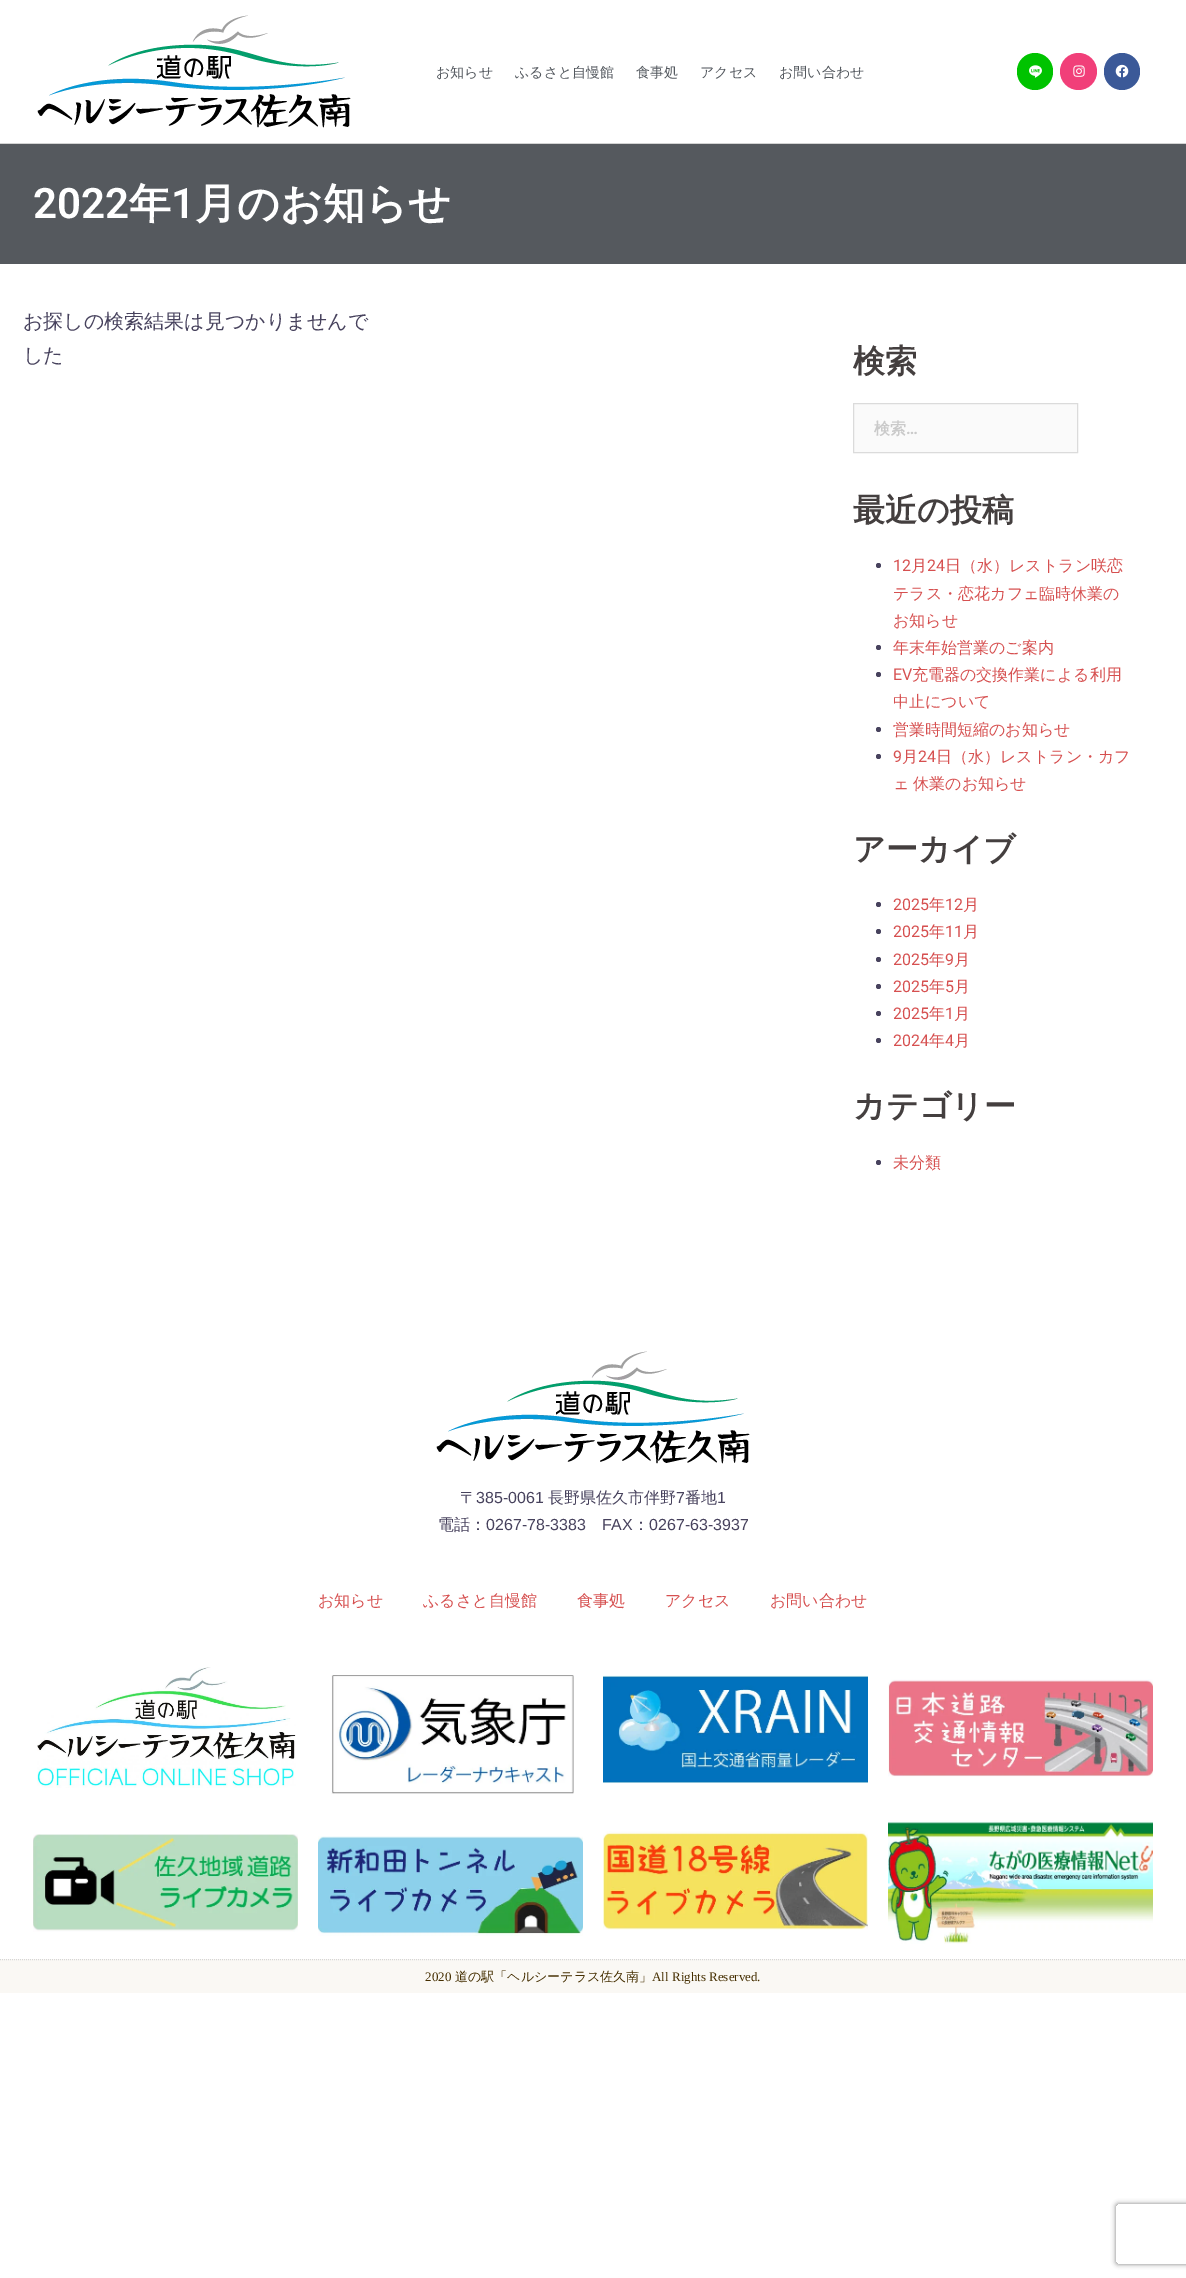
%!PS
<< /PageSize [1186 2278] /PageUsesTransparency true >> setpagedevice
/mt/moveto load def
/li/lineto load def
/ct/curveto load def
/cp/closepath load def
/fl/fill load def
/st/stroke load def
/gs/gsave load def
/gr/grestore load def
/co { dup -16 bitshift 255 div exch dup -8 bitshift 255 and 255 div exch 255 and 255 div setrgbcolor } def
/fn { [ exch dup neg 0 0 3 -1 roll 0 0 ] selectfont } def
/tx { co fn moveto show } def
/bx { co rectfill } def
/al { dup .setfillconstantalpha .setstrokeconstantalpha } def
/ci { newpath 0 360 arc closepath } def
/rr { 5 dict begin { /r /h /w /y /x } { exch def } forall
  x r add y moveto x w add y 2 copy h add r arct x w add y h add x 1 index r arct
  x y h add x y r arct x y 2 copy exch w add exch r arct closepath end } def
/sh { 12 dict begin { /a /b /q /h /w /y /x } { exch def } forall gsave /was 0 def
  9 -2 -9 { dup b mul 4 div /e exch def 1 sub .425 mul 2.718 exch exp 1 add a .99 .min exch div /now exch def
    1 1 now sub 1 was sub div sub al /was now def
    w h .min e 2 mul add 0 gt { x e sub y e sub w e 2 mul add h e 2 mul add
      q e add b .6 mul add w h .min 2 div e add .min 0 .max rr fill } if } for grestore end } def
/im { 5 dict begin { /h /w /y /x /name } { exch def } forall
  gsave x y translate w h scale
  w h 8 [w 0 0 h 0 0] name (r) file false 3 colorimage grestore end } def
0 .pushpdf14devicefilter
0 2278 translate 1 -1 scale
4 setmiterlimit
0 0 1186 2278 16#FFFFFF bx
0 143 1186 1 16#D3D3D3 bx
(media/1.raw) 37 15 314 113 im
16#00C300 co
1017 53 36 37 18 rr fl
(media/2.raw) 1029 65 13 13 im
16#F13F79 co
1078.5 71.5 18.5 ci fl
(media/3.raw) 1073 65 12 12 im
16#3B5998 co
1104 53 36 37 18 rr fl
(media/4.raw) 1115 64 14 14 im
0 144 1186 120 16#55595E bx
16#FAFAFA co
853.5 403.5 mt 1077.5 403.5 li 1077.5 452.5 li 853.5 452.5 li cp gs fl gr
16#DBDBDB co
st
16#47425D co
878.5 565.5 2.5 ci fl
878.5 647.5 2.5 ci fl
878.5 674.5 2.5 ci fl
878.5 729.5 2.5 ci fl
878.5 756.5 2.5 ci fl
878.5 904.5 2.5 ci fl
878.5 931.5 2.5 ci fl
878.5 959.5 2.5 ci fl
878.5 986.5 2.5 ci fl
878.5 1013.5 2.5 ci fl
878.5 1040.5 2.5 ci fl
878.5 1162.5 2.5 ci fl
(media/1.raw) 436 1351 314 113 im
(media/5.raw) 37 1667 259 121 im
(media/6.raw) 331 1675 243 119 im
(media/7.raw) 603 1675 265 108 im
(media/8.raw) 888 1679 265 98 im
(media/9.raw) 33 1834 265 98 im
(media/10.raw) 318 1836 265 100 im
(media/11.raw) 603 1831 265 99 im
(media/12.raw) 888 1820 265 124 im
0 1959 1186 34 16#FAF8F4 bx
16#D6D6D6 co
[1 1] 0 setdash
0 1959.5 mt 1186 1959.5 li st
gs
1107 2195 mt 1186 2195 li 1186 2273 li 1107 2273 li cp 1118 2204 mt 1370 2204 li 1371 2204 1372 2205 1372 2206 ct 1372 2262 li 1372 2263 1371 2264 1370 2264 ct 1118 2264 li 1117 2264 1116 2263 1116 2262 ct 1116 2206 li 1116 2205 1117 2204 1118 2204 ct cp eoclip newpath
16#808080 co
1116 2204 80 60 2 2.5 1 sh
gr
(お知らせ) 436 77 /WenQuanYiZenHei-Medium 14 16#54595F tx
(ふるさと自慢館) 515 77 /WenQuanYiZenHei-Medium 14 16#54595F tx
(食事処) 636 77 /WenQuanYiZenHei-Medium 14 16#54595F tx
(アクセス) 700 77 /WenQuanYiZenHei-Medium 14 16#54595F tx
(お問い合わせ) 779 77 /WenQuanYiZenHei-Medium 14 16#54595F tx
(2022) 33 218 /Roboto-SemiBold 42 16#FFFFFF tx
(年) 129 218 /WenQuanYiZenHei-Bold 42 16#FFFFFF tx
(1) 171 218 /Roboto-SemiBold 42 16#FFFFFF tx
(月のお知らせ) 195 218 /WenQuanYiZenHei-Bold 42 16#FFFFFF tx
(お探しの検索結果は見つかりませんで) 23 328 /WenQuanYiZenHei-Medium 20 16#47425D tx
(した) 23 362 /WenQuanYiZenHei-Medium 20 16#47425D tx
(検索) 853 372 /WenQuanYiZenHei-Bold 32 16#443F3F tx
(検索) 874 434 /WenQuanYiZenHei-Bold 16 16#CACACA tx
(…) 906 434 /Roboto-Bold 16 16#CACACA tx
(最近の投稿) 853 521 /WenQuanYiZenHei-Bold 32 16#443F3F tx
(12) 893 571 /Roboto-Regular 16 16#D65050 tx
(月) 911 571 /WenQuanYiZenHei-Medium 16 16#D65050 tx
(24) 927 571 /Roboto-Regular 16 16#D65050 tx
(日（水）レストラン咲恋) 945 571 /WenQuanYiZenHei-Medium 16 16#D65050 tx
(テラス・恋花カフェ臨時休業の) 893 599 /WenQuanYiZenHei-Medium 16 16#D65050 tx
(お知らせ) 893 626 /WenQuanYiZenHei-Medium 16 16#D65050 tx
(年末年始営業のご案内) 893 653 /WenQuanYiZenHei-Medium 16 16#D65050 tx
(EV) 893 680 /Roboto-Regular 16 16#D65050 tx
(充電器の交換作業による利用) 912 680 /WenQuanYiZenHei-Medium 16 16#D65050 tx
(中止について) 893 707 /WenQuanYiZenHei-Medium 16 16#D65050 tx
(営業時間短縮のお知らせ) 893 735 /WenQuanYiZenHei-Medium 16 16#D65050 tx
(9) 893 762 /Roboto-Regular 16 16#D65050 tx
(月) 902 762 /WenQuanYiZenHei-Medium 16 16#D65050 tx
(24) 918 762 /Roboto-Regular 16 16#D65050 tx
(日（水）レストラン・カフ) 936 762 /WenQuanYiZenHei-Medium 16 16#D65050 tx
893 789 mt -1 0 32 (ェ 休業のお知らせ) widthshow
(アーカイブ) 853 860 /WenQuanYiZenHei-Bold 32 16#443F3F tx
(2025) 893 910 /Roboto-Regular 16 16#D65050 tx
(年) 929 910 /WenQuanYiZenHei-Medium 16 16#D65050 tx
(12) 945 910 /Roboto-Regular 16 16#D65050 tx
(月) 963 910 /WenQuanYiZenHei-Medium 16 16#D65050 tx
(2025) 893 937 /Roboto-Regular 16 16#D65050 tx
(年) 929 937 /WenQuanYiZenHei-Medium 16 16#D65050 tx
(11) 945 937 /Roboto-Regular 16 16#D65050 tx
(月) 963 937 /WenQuanYiZenHei-Medium 16 16#D65050 tx
(2025) 893 965 /Roboto-Regular 16 16#D65050 tx
(年) 929 965 /WenQuanYiZenHei-Medium 16 16#D65050 tx
(9) 945 965 /Roboto-Regular 16 16#D65050 tx
(月) 954 965 /WenQuanYiZenHei-Medium 16 16#D65050 tx
(2025) 893 992 /Roboto-Regular 16 16#D65050 tx
(年) 929 992 /WenQuanYiZenHei-Medium 16 16#D65050 tx
(5) 945 992 /Roboto-Regular 16 16#D65050 tx
(月) 954 992 /WenQuanYiZenHei-Medium 16 16#D65050 tx
(2025) 893 1019 /Roboto-Regular 16 16#D65050 tx
(年) 929 1019 /WenQuanYiZenHei-Medium 16 16#D65050 tx
(1) 945 1019 /Roboto-Regular 16 16#D65050 tx
(月) 954 1019 /WenQuanYiZenHei-Medium 16 16#D65050 tx
(2024) 893 1046 /Roboto-Regular 16 16#D65050 tx
(年) 929 1046 /WenQuanYiZenHei-Medium 16 16#D65050 tx
(4) 945 1046 /Roboto-Regular 16 16#D65050 tx
(月) 954 1046 /WenQuanYiZenHei-Medium 16 16#D65050 tx
(カテゴリー) 853 1117 /WenQuanYiZenHei-Bold 32 16#443F3F tx
(未分類) 893 1168 /WenQuanYiZenHei-Medium 16 16#D65050 tx
(〒) 460 1503 /WenQuanYiZenHei-Medium 16 16#47425D tx
(385-0061) 476 1503 /LiberationSans-Regular 16 16#47425D tx
(長野県佐久市伴野) 548 1503 /WenQuanYiZenHei-Medium 16 16#47425D tx
(7) 676 1503 /LiberationSans-Regular 16 16#47425D tx
(番地) 685 1503 /WenQuanYiZenHei-Medium 16 16#47425D tx
(1) 717 1503 /LiberationSans-Regular 16 16#47425D tx
(電話：) 438 1530 /WenQuanYiZenHei-Medium 16 16#47425D tx
(0267-78-3383 FAX) 486 1530 /LiberationSans-Regular 16 16#47425D tx
(：) 633 1530 /WenQuanYiZenHei-Medium 16 16#47425D tx
(0267-63-3937) 649 1530 /LiberationSans-Regular 16 16#47425D tx
(お知らせ) 318 1606 /WenQuanYiZenHei-Medium 16 16#D65050 tx
(ふるさと自慢館) 423 1606 /WenQuanYiZenHei-Medium 16 16#D65050 tx
(食事処) 577 1606 /WenQuanYiZenHei-Medium 16 16#D65050 tx
(アクセス) 665 1606 /WenQuanYiZenHei-Medium 16 16#D65050 tx
(お問い合わせ) 770 1606 /WenQuanYiZenHei-Medium 16 16#D65050 tx
(2020) 425 1981 /LiberationSerif-Regular 13 16#452E00 tx
(道の駅「ヘルシーテラス佐久南」) 455 1981 /WenQuanYiZenHei-Medium 13 16#452E00 tx
(All Rights Reserved.) 652 1981 /LiberationSerif-Regular 13 16#452E00 tx
.poppdf14devicefilter showpage
